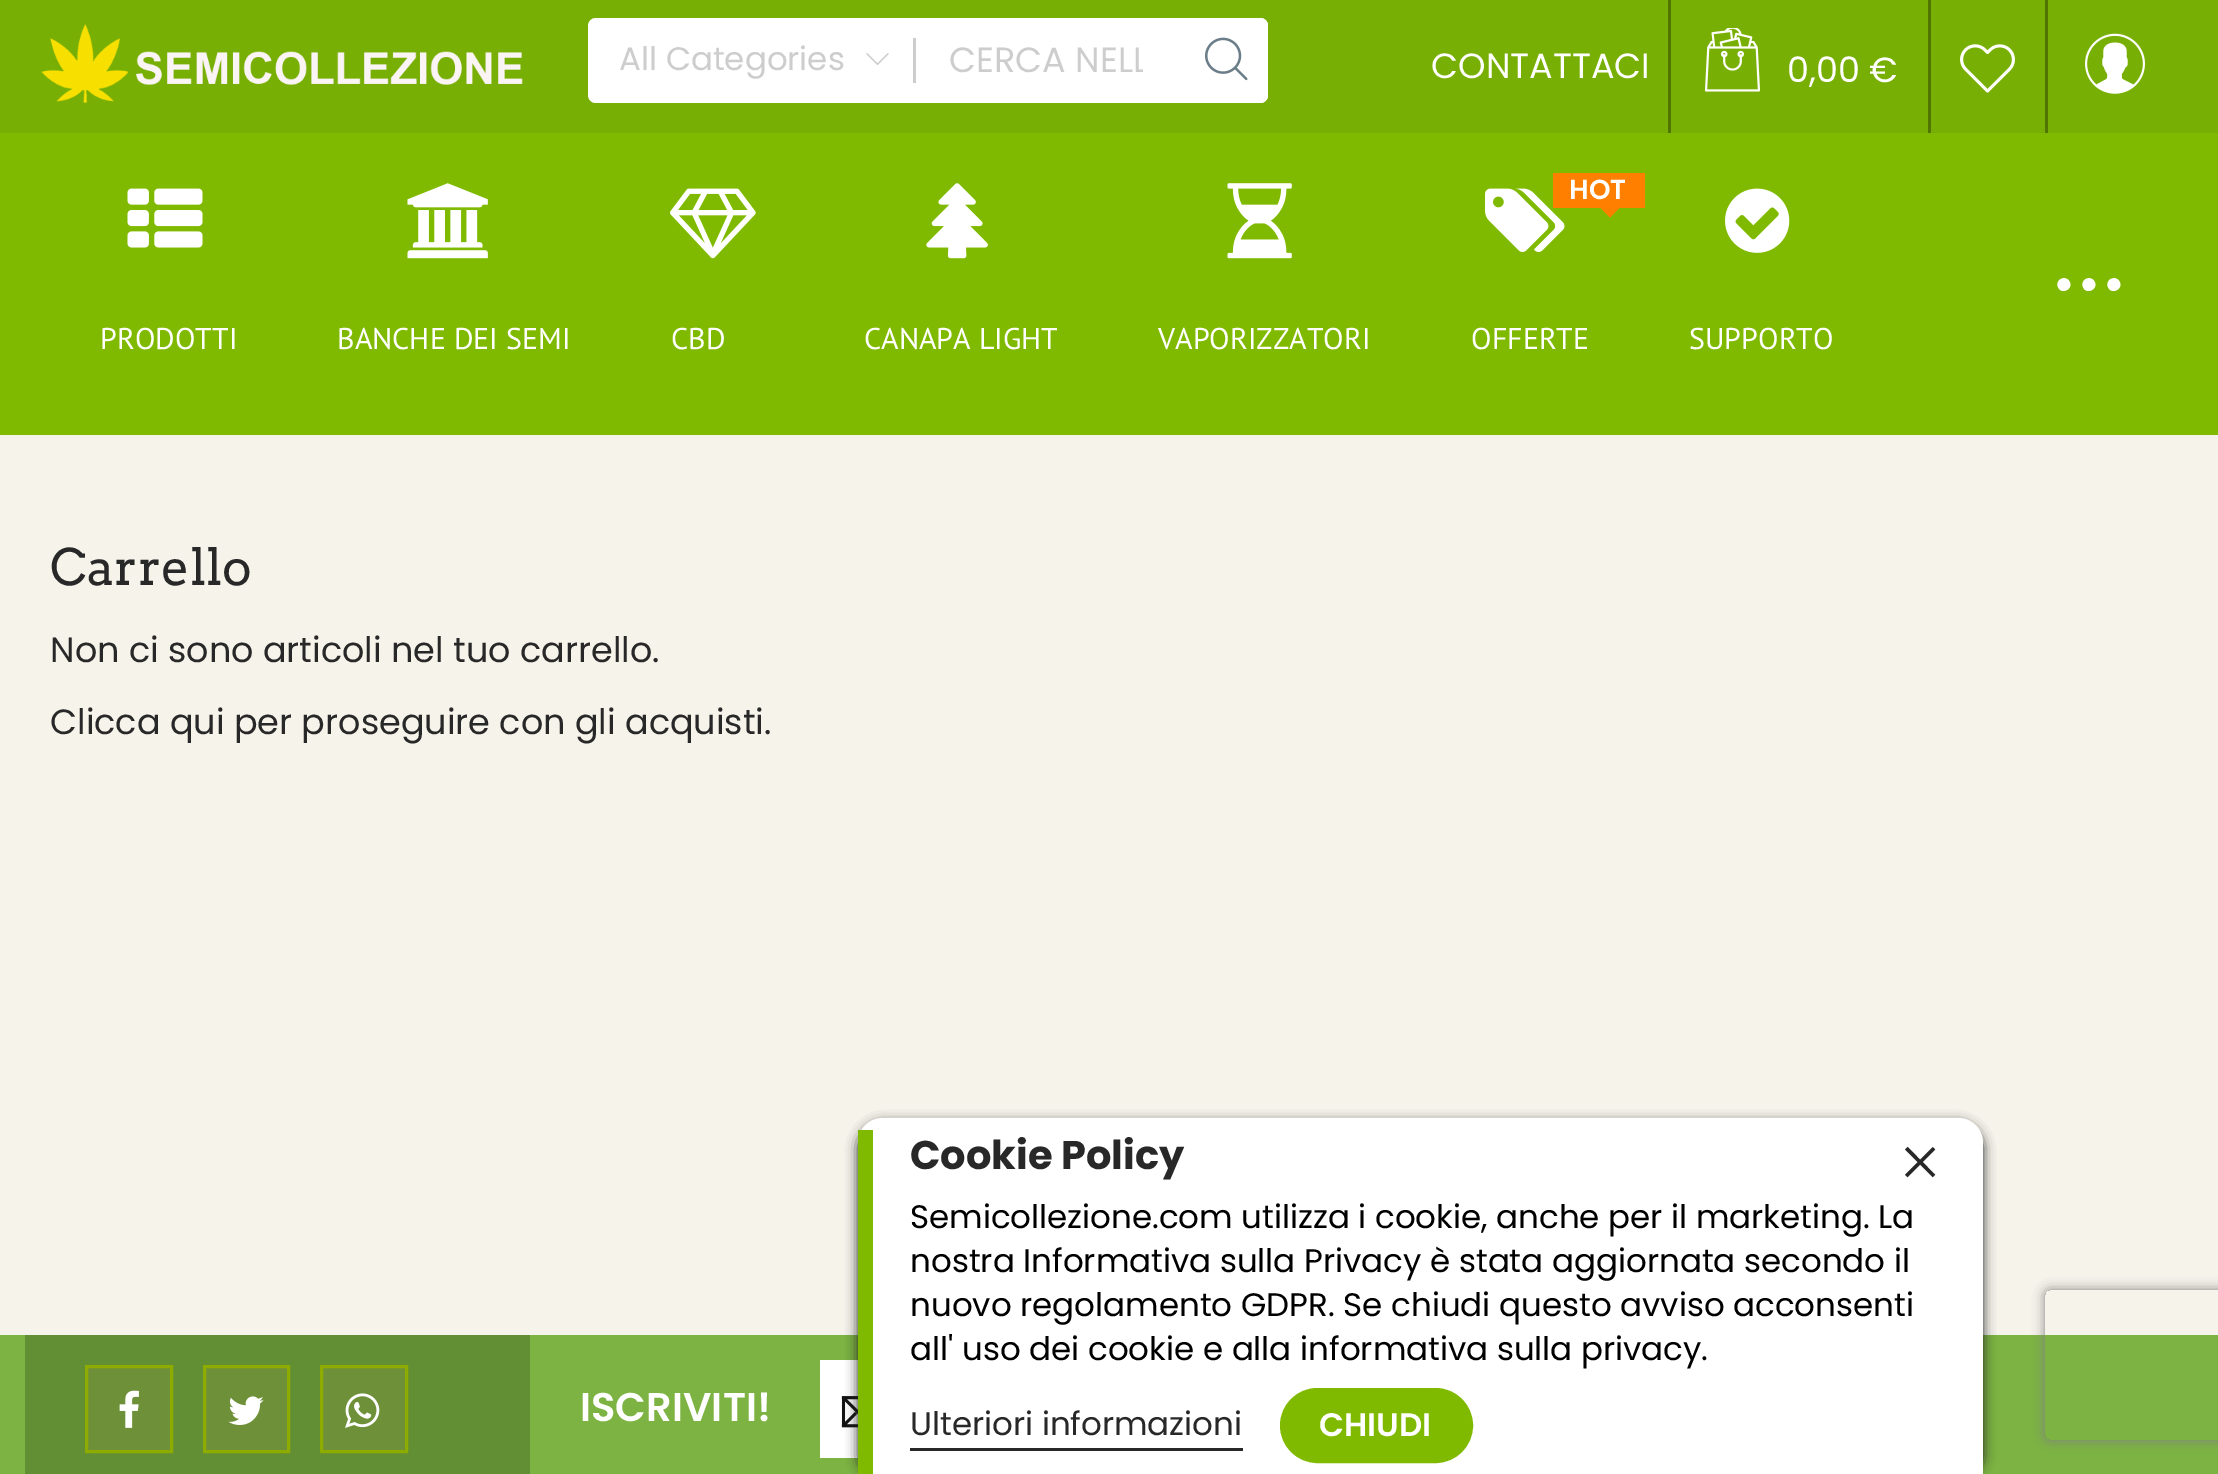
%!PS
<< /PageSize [2218 1474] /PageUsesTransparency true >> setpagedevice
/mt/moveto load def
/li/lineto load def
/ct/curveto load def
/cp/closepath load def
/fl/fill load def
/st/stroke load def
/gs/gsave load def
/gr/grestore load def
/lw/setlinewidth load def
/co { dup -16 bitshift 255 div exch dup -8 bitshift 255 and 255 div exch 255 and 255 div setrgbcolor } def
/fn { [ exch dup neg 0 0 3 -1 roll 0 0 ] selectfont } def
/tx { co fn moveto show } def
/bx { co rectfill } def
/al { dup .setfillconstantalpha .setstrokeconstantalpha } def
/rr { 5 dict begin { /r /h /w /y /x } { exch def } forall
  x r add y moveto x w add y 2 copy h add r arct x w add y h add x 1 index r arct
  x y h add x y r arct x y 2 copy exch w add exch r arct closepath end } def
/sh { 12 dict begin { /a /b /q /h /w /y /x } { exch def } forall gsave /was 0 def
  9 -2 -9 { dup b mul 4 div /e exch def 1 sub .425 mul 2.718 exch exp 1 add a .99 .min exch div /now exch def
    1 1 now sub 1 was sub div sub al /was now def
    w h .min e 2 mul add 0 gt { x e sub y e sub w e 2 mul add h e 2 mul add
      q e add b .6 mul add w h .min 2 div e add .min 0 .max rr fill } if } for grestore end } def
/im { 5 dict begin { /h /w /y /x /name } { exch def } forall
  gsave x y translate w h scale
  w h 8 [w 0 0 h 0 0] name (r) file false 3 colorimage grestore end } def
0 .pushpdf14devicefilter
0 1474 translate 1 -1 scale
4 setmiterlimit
0 0 2218 1474 16#F5F3EA bx
0 133 2218 302 16#7FBA00 bx
0 0 2218 133 16#78AF05 bx
(media/1.raw) 41 24 482 80 im
16#FFFFFF co
588 18 680 85 8 rr fl
(media/2.raw) 866 53 23 12 im
913 38 3 45 16#CDCDCD bx
16#FFFFFF co
1183 18 mt 1260 18 li 1264.5 18 1268 21.5 1268 26 ct 1268 95 li 1268 99.5 1264.5 103 1260 103 ct 1183 103 li cp fl
(media/3.raw) 1205 37 43 44 im
1668 0 3 133 16#507601 bx
1928 0 3 133 16#507601 bx
(media/4.raw) 1704 28 57 64 im
2045 0 3 133 16#507601 bx
(media/5.raw) 1960 44 55 49 im
(media/6.raw) 2085 33 60 61 im
(media/7.raw) 127 188 76 60 im
(media/8.raw) 407 183 81 76 im
(media/9.raw) 670 188 86 71 im
(media/10.raw) 926 183 62 76 im
(media/11.raw) 1227 183 65 76 im
(media/12.raw) 1485 188 80 64 im
1553 173 92 35 16#FF8000 bx
1600 207.5 mt 1620 207.5 li 1610 217.5 li cp fl
(media/13.raw) 1725 188 65 65 im
16#FFFFFF co
2069.5 281.5 mt 2073.5 288.5 2062.5 295 2058.5 288 ct 2054 280.5 2065 274 2069.5 281.5 ct cp 2094.5 281.5 mt 2098.5 288.5 2087.5 295 2083.5 288 ct 2079 280.5 2090 274 2094.5 281.5 ct cp fl
2119.5 281.5 mt 2123.5 288.5 2112.5 295 2108.5 288 ct 2104 280.5 2115 274 2119.5 281.5 ct cp fl
0 1335 2218 139 16#7CB342 bx
25 1335 505 139 16#628E34 bx
16#6E9039 co
86.5 1366.5 mt 171.5 1366.5 li 171.5 1451.5 li 86.5 1451.5 li cp gs fl gr
16#8EAC00 co
3 lw
st
(media/14.raw) 119 1390 20 38 im
16#6E9039 co
204.5 1366.5 mt 288.5 1366.5 li 288.5 1451.5 li 204.5 1451.5 li cp gs fl gr
16#8EAC00 co
st
(media/15.raw) 228 1396 36 29 im
16#6E9039 co
321.5 1366.5 mt 406.5 1366.5 li 406.5 1451.5 li 321.5 1451.5 li cp gs fl gr
16#8EAC00 co
st
(media/16.raw) 345 1393 35 35 im
820 1360 38 98 16#FFFFFF bx
(media/17.raw) 841 1396 17 32 im
gs
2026 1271 mt 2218 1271 li 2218 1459 li 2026 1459 li cp 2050 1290 mt 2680 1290 li 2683 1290 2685 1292 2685 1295 ct 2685 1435 li 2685 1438 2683 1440 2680 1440 ct 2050 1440 li 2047 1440 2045 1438 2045 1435 ct 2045 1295 li 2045 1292 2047 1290 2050 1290 ct cp eoclip newpath
16#808080 co
2045 1290 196 150 5 6 1 sh
gr
16#212121 co
858 1123 1125 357 25 6 1 sh
16#FFFFFF co
883 1118 mt 1958 1118 li 1972 1118 1983 1129 1983 1143 ct 1983 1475 li 858 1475 li 858 1143 li 858 1129 869 1118 883 1118 ct cp fl
858 1130 15 344 16#7FBA00 bx
910 1448 333 3 16#282828 bx
16#7FBA00 co
1281.5 1389.5 190 72 36 rr gs fl gr
st
(All Categories) 619 70 /Poppins-Regular 32.5 16#CDCDCD tx
gs
950 35 193 53 rectclip
(CERCA NELL) 949 72 /Poppins-Regular 35 16#CDCDCD tx
gr
(CONTATTACI) 1431 78 /Poppins-Regular 35 16#FFFFFF tx
(0,00 €) 1787 82 /Poppins-Regular 35 16#FFFFFF tx
(PRODOTTI) 100 349 /PTSans-Regular 30 16#FFFFFF tx
(BANCHE DEI SEMI) 337 349 /PTSans-Regular 30 16#FFFFFF tx
(CBD) 671 349 /PTSans-Regular 30 16#FFFFFF tx
(CANAPA LIGHT) 864 349 /PTSans-Regular 30 16#FFFFFF tx
(VAPORIZZATORI) 1158 349 /PTSans-Regular 30 16#FFFFFF tx
(HOT) 1569 199 /Poppins-SemiBold 27.5 16#FFFFFF tx
(OFFERTE) 1471 349 /PTSans-Regular 30 16#FFFFFF tx
(SUPPORTO) 1689 349 /PTSans-Regular 30 16#FFFFFF tx
(Carrello) 50 585 /Arvo-Regular 50 16#282828 tx
(Non ci sono articoli nel tuo carrello.) 50 662 /Poppins-Regular 35 16#282828 tx
(Clicca qui per proseguire con gli acquisti.) 50 734 /Poppins-Regular 35 16#282828 tx
(ISCRIVITI!) 580 1421 /Poppins-SemiBold 40 16#FFFFFF tx
(Cookie Policy) 910 1169 /Poppins-Bold 40 16#282828 tx
(Semicollezione.com utilizza i cookie, anche per il marketing. La) 910 1228 /Poppins-Regular 32.5 16#000000 tx
(nostra Informativa sulla Privacy è stata aggiornata secondo il) 910 1272 /Poppins-Regular 32.5 16#000000 tx
(nuovo regolamento GDPR. Se chiudi questo avviso acconsenti) 910 1316 /Poppins-Regular 32.5 16#000000 tx
(all' uso dei cookie e alla informativa sulla privacy.) 910 1360 /Poppins-Regular 32.5 16#000000 tx
(Ulteriori informazioni) 910 1435 /Poppins-Regular 32.5 16#282828 tx
(CHIUDI) 1319 1436 /Poppins-SemiBold 32.5 16#FFFFFF tx
(×) 1899 1187 /LiberationSerif-Regular 75 16#282828 tx
.poppdf14devicefilter showpage
